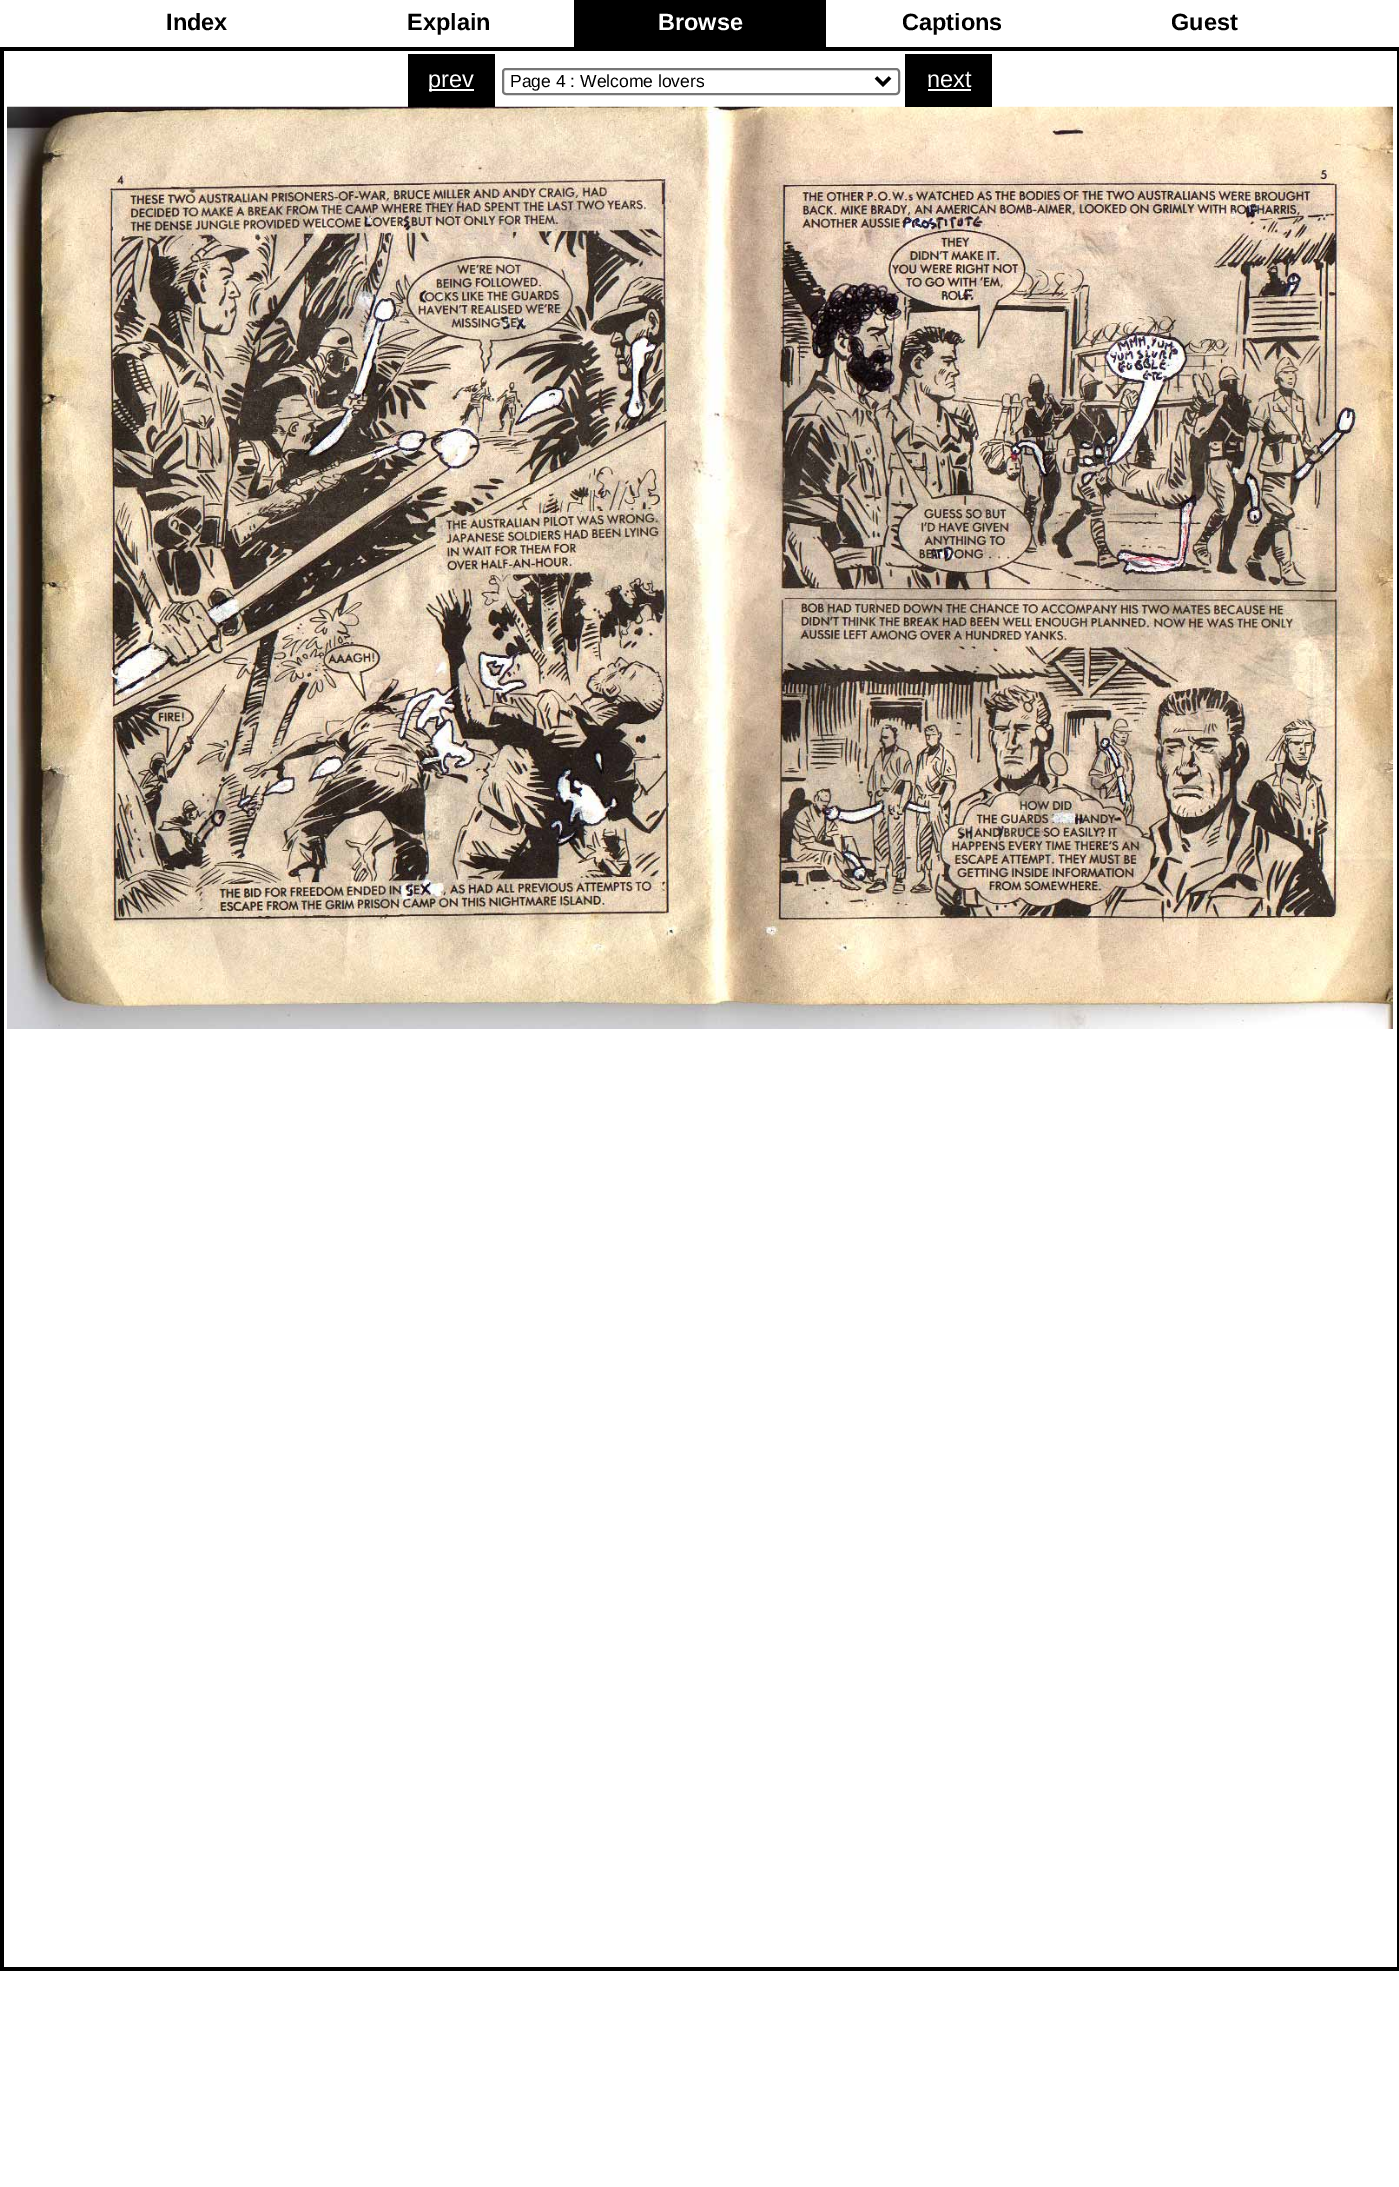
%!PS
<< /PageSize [1399 2187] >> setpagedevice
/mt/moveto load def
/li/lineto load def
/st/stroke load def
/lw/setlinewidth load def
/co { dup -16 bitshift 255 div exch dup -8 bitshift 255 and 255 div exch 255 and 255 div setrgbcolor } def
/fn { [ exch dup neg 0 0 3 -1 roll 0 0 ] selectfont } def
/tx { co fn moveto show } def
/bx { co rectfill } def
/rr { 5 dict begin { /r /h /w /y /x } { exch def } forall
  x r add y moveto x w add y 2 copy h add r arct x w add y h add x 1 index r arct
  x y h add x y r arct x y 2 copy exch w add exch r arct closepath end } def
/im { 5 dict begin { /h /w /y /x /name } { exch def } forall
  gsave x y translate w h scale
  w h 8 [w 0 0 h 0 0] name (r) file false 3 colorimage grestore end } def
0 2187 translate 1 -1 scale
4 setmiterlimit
0 0 1399 2187 16#FFFFFF bx
574 0 252 47 16#000000 bx
0 47 1399 1924 16#000000 bx
4 51 1393 1916 16#FFFFFF bx
(media/1.raw) 7 106 1386 923 im
408 54 87 53 16#000000 bx
429 89 45 2 16#FFFFFF bx
16#767676 co
2 lw
503 69 396 25 3 rr st
16#000000 co
3.5 lw
876 77.5 mt 883 84.5 li 890 77.5 li st
905 54 87 53 16#000000 bx
928 89 43 2 16#FFFFFF bx
(Index) 166 30 /LiberationSans-Bold 23.5 16#000000 tx
(Explain) 407 30 /LiberationSans-Bold 23.5 16#000000 tx
(Browse) 658 30 /LiberationSans-Bold 23.5 16#FFFFFF tx
(Captions) 902 30 /LiberationSans-Bold 23.5 16#000000 tx
(Guest) 1171 30 /LiberationSans-Bold 23.5 16#000000 tx
(prev) 428 87 /LiberationSans-Regular 23.5 16#FFFFFF tx
(Page 4 : Welcome lovers) 510 87 /LiberationSans-Regular 17.5 16#000000 tx
(next) 927 87 /LiberationSans-Regular 23.5 16#FFFFFF tx
showpage
